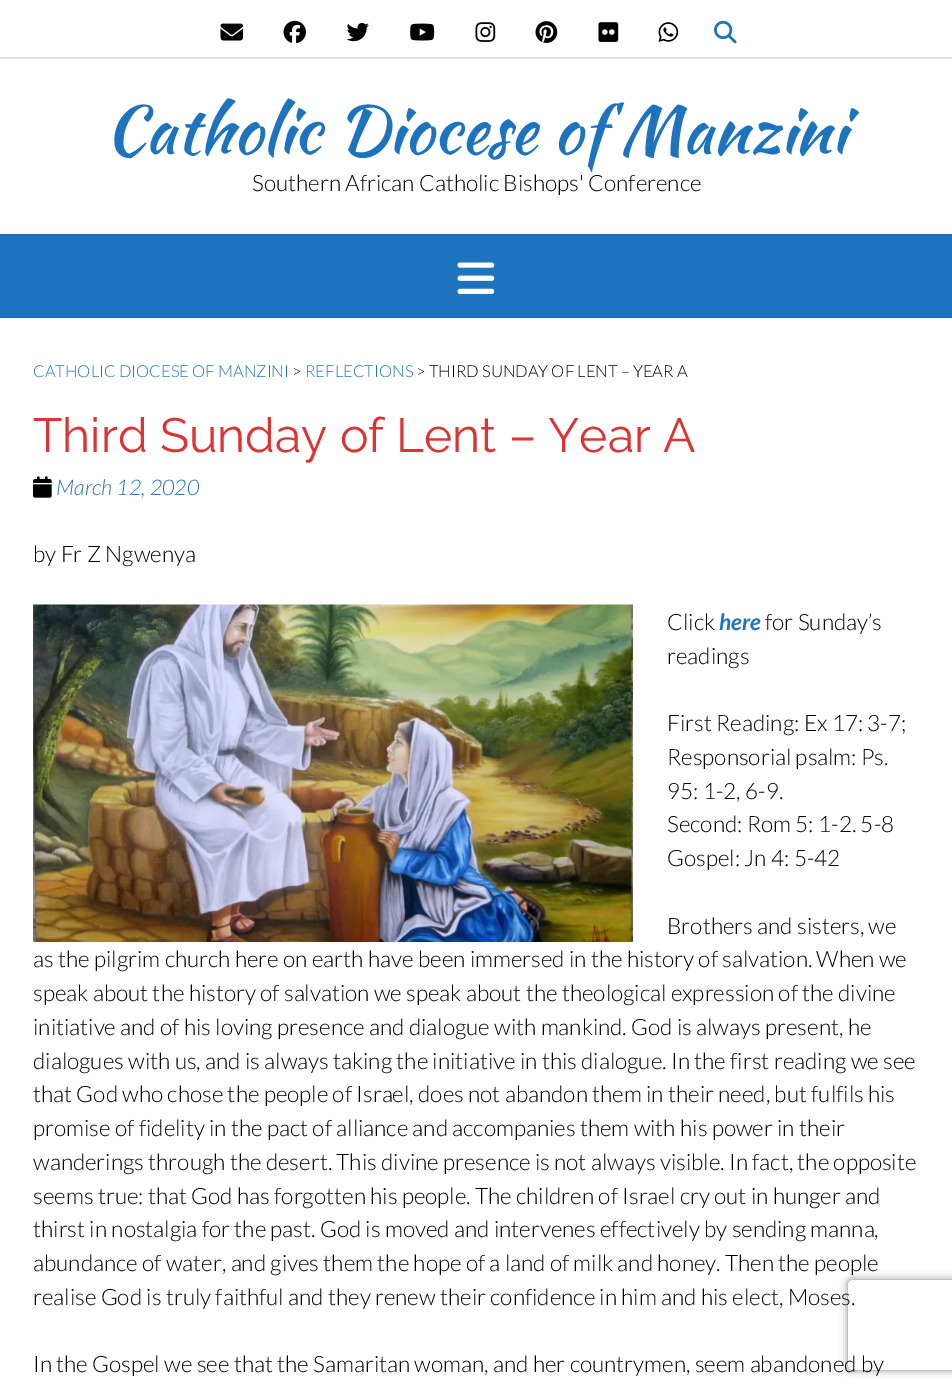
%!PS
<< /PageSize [952 1390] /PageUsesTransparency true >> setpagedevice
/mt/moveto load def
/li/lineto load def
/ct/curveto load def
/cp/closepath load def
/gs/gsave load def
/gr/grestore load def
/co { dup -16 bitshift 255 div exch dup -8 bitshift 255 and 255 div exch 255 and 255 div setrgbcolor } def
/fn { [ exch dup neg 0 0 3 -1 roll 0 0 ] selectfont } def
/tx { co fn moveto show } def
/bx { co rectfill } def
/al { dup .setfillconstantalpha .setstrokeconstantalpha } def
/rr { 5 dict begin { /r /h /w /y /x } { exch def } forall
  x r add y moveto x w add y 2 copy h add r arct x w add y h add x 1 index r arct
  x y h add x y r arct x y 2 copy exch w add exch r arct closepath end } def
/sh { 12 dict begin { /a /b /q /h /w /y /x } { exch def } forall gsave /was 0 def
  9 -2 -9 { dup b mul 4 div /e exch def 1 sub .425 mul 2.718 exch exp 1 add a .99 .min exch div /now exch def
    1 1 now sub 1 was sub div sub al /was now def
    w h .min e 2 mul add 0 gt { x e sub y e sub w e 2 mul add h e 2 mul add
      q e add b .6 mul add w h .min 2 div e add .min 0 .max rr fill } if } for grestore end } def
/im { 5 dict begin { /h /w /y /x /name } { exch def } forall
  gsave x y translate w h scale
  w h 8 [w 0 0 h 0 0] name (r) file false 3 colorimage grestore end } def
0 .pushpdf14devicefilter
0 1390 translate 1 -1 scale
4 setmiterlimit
0 0 952 1390 16#FFFFFF bx
0 57 952 2 16#E0E0E0 bx
(media/1.raw) 220 23 23 18 im
(media/2.raw) 283 20 23 24 im
(media/3.raw) 346 22 23 20 im
(media/4.raw) 410 23 25 18 im
(media/5.raw) 475 22 21 20 im
(media/6.raw) 535 21 23 22 im
(media/7.raw) 598 22 21 20 im
(media/8.raw) 658 22 21 20 im
(media/9.raw) 714 20 23 24 im
0 234 952 84 16#1E73BE bx
(media/10.raw) 457 262 38 32 im
(media/11.raw) 33 476 19 22 im
(media/12.raw) 33 604 600 338 im
gs
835 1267 mt 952 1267 li 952 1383 li 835 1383 li cp 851 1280 mt 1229 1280 li 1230.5 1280 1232 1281.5 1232 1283 ct 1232 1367 li 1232 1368.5 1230.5 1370 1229 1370 ct 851 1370 li 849.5 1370 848 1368.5 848 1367 ct 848 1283 li 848 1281.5 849.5 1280 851 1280 ct cp eoclip newpath
16#808080 co
848 1280 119 90 3 4 1 sh
gr
(Catholic Diocese of Manzini) 105 153 /KaushanScript-Regular 66 16#1E73BE tx
(Southern African Catholic Bishops' Conference) 252 191 /Lato-Light 22.5 16#000000 tx
(CATHOLIC DIOCESE OF MANZINI) 33 377 /Lato-Light 16.5 16#1E73BE tx
(>) 292 377 /Lato-Light 16.5 16#000000 tx
(REFLECTIONS) 305 377 /Lato-Light 16.5 16#1E73BE tx
(> THIRD SUNDAY OF LENT – YEAR A) 416 377 /Lato-Light 16.5 16#000000 tx
(Third Sunday of Lent – Year A) 33 452 /Raleway-Regular 48 16#DD3333 tx
(March 12, 2020) 56 495 /Lato-LightItalic 21.5 16#1E73BE tx
(by Fr Z Ngwenya) 33 562 /Lato-Light 22.5 16#000000 tx
(Click) 667 630 /Lato-Light 22.5 16#000000 tx
(here) 719 630 /Lato-BoldItalic 22.5 16#1E73BE tx
(for Sunday’s) 765 630 /Lato-Light 22.5 16#000000 tx
(readings) 667 664 /Lato-Light 22.5 16#000000 tx
(First Reading: Ex 17: 3-7;) 667 731 /Lato-Light 22.5 16#000000 tx
(Responsorial psalm: Ps.) 667 765 /Lato-Light 22.5 16#000000 tx
(95: 1-2, 6-9.) 667 799 /Lato-Light 22.5 16#000000 tx
(Second: Rom 5: 1-2. 5-8) 667 832 /Lato-Light 22.5 16#000000 tx
(Gospel: Jn 4: 5-42) 667 866 /Lato-Light 22.5 16#000000 tx
(Brothers and sisters, we) 667 934 /Lato-Light 22.5 16#000000 tx
(as the pilgrim church here on earth have been immersed in the history of salvation. When we) 33 967 /Lato-Light 22.5 16#000000 tx
(speak about the history of salvation we speak about the theological expression of the divine) 33 1001 /Lato-Light 22.5 16#000000 tx
(initiative and of his loving presence and dialogue with mankind. God is always present, he) 33 1035 /Lato-Light 22.5 16#000000 tx
(dialogues with us, and is always taking the initiative in this dialogue. In the first reading we see) 33 1069 /Lato-Light 22.5 16#000000 tx
(that God who chose the people of Israel, does not abandon them in their need, but fulfils his) 33 1102 /Lato-Light 22.5 16#000000 tx
(promise of fidelity in the pact of alliance and accompanies them with his power in their) 33 1136 /Lato-Light 22.5 16#000000 tx
(wanderings through the desert. This divine presence is not always visible. In fact, the opposite) 33 1170 /Lato-Light 22.5 16#000000 tx
(seems true: that God has forgotten his people. The children of Israel cry out in hunger and) 33 1204 /Lato-Light 22.5 16#000000 tx
(thirst in nostalgia for the past. God is moved and intervenes effectively by sending manna,) 33 1237 /Lato-Light 22.5 16#000000 tx
(abundance of water, and gives them the hope of a land of milk and honey. Then the people) 33 1271 /Lato-Light 22.5 16#000000 tx
(realise God is truly faithful and they renew their confidence in him and his elect, Moses.) 33 1305 /Lato-Light 22.5 16#000000 tx
(In the Gospel we see that the Samaritan woman, and her countrymen, seem abandoned by) 33 1372 /Lato-Light 22.5 16#000000 tx
.poppdf14devicefilter showpage
